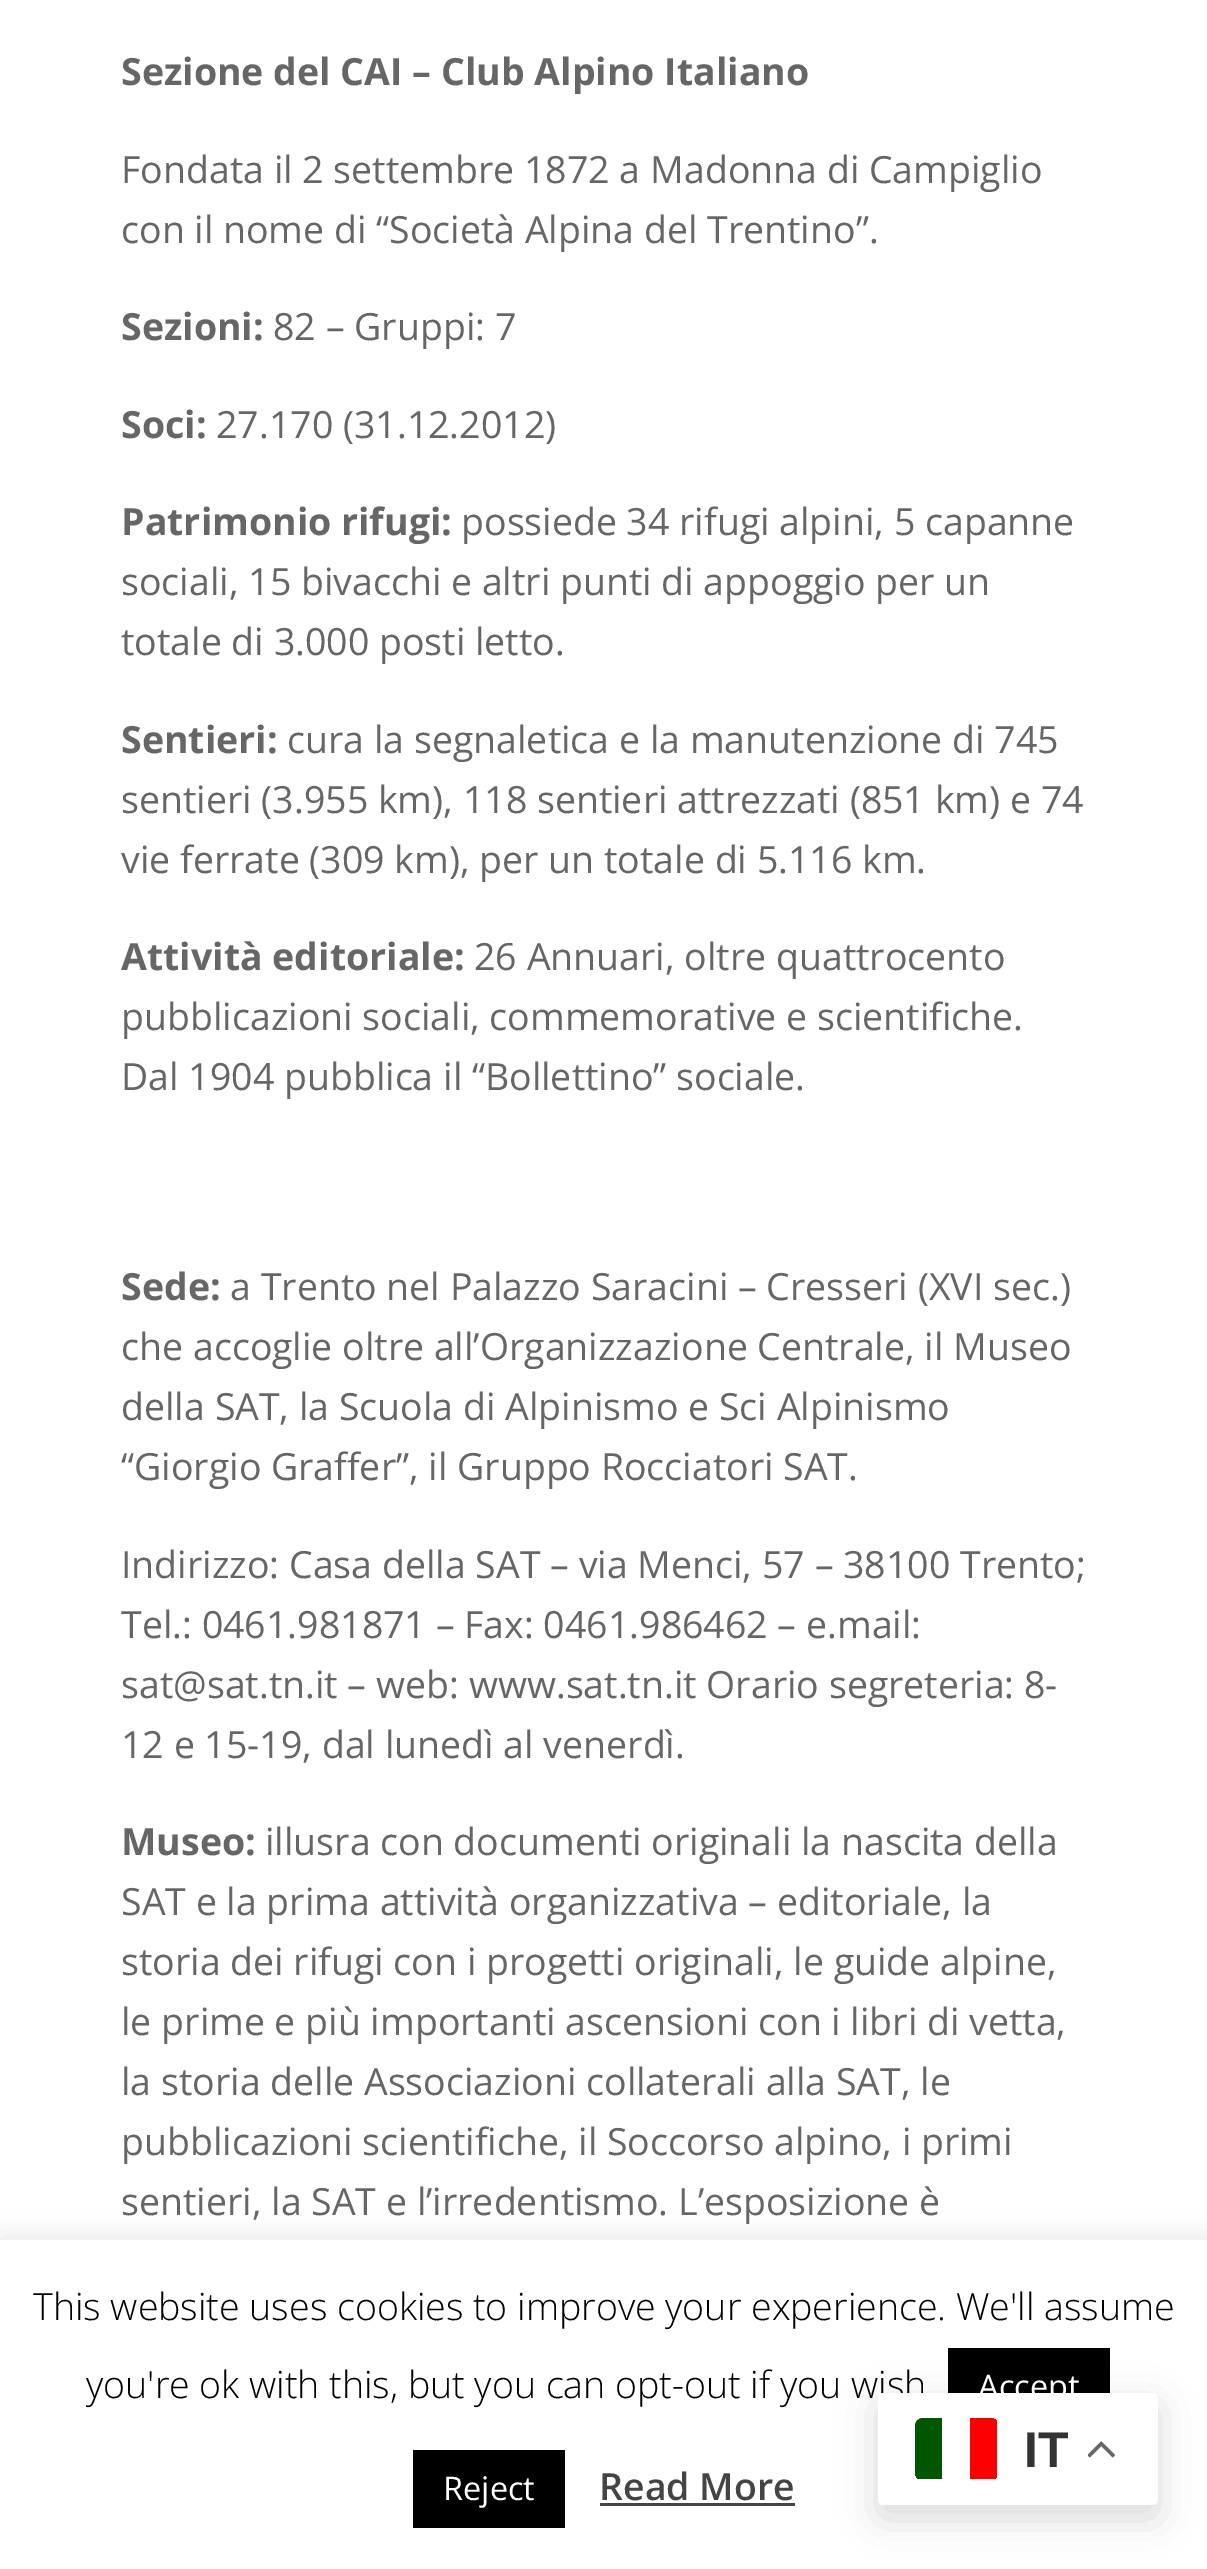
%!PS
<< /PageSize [1207 2569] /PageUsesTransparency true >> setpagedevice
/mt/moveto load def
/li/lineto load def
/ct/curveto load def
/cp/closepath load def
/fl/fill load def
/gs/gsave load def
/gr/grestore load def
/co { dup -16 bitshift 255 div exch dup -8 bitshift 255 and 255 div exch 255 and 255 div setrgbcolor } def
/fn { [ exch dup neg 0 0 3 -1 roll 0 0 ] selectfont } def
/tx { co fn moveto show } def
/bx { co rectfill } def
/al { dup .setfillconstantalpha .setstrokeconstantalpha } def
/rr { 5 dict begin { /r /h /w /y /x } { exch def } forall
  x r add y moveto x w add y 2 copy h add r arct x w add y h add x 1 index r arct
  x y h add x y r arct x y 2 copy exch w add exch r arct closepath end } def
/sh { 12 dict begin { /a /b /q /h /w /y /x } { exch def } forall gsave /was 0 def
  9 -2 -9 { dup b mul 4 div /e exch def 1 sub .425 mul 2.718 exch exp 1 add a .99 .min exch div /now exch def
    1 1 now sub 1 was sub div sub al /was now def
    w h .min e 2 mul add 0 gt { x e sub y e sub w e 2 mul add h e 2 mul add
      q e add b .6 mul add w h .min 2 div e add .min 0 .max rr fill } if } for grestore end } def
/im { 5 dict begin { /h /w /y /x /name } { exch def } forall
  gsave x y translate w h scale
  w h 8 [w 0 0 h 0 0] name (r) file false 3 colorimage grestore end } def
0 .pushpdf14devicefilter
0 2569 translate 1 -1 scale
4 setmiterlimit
0 0 1207 2569 16#FFFFFF bx
16#ACABAB co
0 2238 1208 330 0 12.5 .3 sh
0 2240 1207 329 16#FFFFFF bx
948 2348 162 45 16#000000 bx
413 2450 152 78 16#000000 bx
600 2503 195 3 16#444444 bx
16#000000 co
878 2405 280 113 5 19 .15 sh
(Sezione del CAI – Club Alpino Italiano) 121 85 /OpenSans-Bold 37.5 16#666666 tx
(Fondata il 2 settembre 1872 a Madonna di Campiglio) 121 183 /OpenSans-Regular 37.5 16#666666 tx
(con il nome di “Società Alpina del Trentino”.) 121 243 /OpenSans-Regular 37.5 16#666666 tx
(Sezioni:) 121 340 /OpenSans-Bold 37.5 16#666666 tx
(82 – Gruppi: 7) 273 340 /OpenSans-Regular 37.5 16#666666 tx
(Soci:) 121 438 /OpenSans-Bold 37.5 16#666666 tx
(27.170 \(31.12.2012\)) 216 438 /OpenSans-Regular 37.5 16#666666 tx
(Patrimonio rifugi:) 121 535 /OpenSans-Bold 37.5 16#666666 tx
(possiede 34 rifugi alpini, 5 capanne) 461 535 /OpenSans-Regular 37.5 16#666666 tx
(sociali, 15 bivacchi e altri punti di appoggio per un) 121 595 /OpenSans-Regular 37.5 16#666666 tx
(totale di 3.000 posti letto.) 121 655 /OpenSans-Regular 37.5 16#666666 tx
(Sentieri:) 121 753 /OpenSans-Bold 37.5 16#666666 tx
(cura la segnaletica e la manutenzione di 745) 287 753 /OpenSans-Regular 37.5 16#666666 tx
(sentieri \(3.955 km\), 118 sentieri attrezzati \(851 km\) e 74) 121 813 /OpenSans-Regular 37.5 16#666666 tx
(vie ferrate \(309 km\), per un totale di 5.116 km.) 121 873 /OpenSans-Regular 37.5 16#666666 tx
(Attività editoriale:) 121 970 /OpenSans-Bold 37.5 16#666666 tx
(26 Annuari, oltre quattrocento) 474 970 /OpenSans-Regular 37.5 16#666666 tx
(pubblicazioni sociali, commemorative e scientifiche.) 121 1030 /OpenSans-Regular 37.5 16#666666 tx
(Dal 1904 pubblica il “Bollettino” sociale.) 121 1090 /OpenSans-Regular 37.5 16#666666 tx
(Sede:) 121 1300 /OpenSans-Bold 37.5 16#666666 tx
(a Trento nel Palazzo Saracini – Cresseri \(XVI sec.\)) 230 1300 /OpenSans-Regular 37.5 16#666666 tx
(che accoglie oltre all’Organizzazione Centrale, il Museo) 121 1360 /OpenSans-Regular 37.5 16#666666 tx
(della SAT, la Scuola di Alpinismo e Sci Alpinismo) 121 1420 /OpenSans-Regular 37.5 16#666666 tx
(“Giorgio Graffer”, il Gruppo Rocciatori SAT.) 121 1480 /OpenSans-Regular 37.5 16#666666 tx
(Indirizzo: Casa della SAT – via Menci, 57 – 38100 Trento;) 121 1578 /OpenSans-Regular 37.5 16#666666 tx
(Tel.: 0461.981871 – Fax: 0461.986462 – e.mail:) 121 1638 /OpenSans-Regular 37.5 16#666666 tx
(sat@sat.tn.it – web: www.sat.tn.it Orario segreteria: 8-) 121 1698 /OpenSans-Regular 37.5 16#666666 tx
(12 e 15-19, dal lunedì al venerdì.) 121 1758 /OpenSans-Regular 37.5 16#666666 tx
(Museo:) 121 1855 /OpenSans-Bold 37.5 16#666666 tx
(illusra con documenti originali la nascita della) 265 1855 /OpenSans-Regular 37.5 16#666666 tx
(SAT e la prima attività organizzativa – editoriale, la) 121 1915 /OpenSans-Regular 37.5 16#666666 tx
(storia dei rifugi con i progetti originali, le guide alpine,) 121 1975 /OpenSans-Regular 37.5 16#666666 tx
(le prime e più importanti ascensioni con i libri di vetta,) 121 2035 /OpenSans-Regular 37.5 16#666666 tx
(la storia delle Associazioni collaterali alla SAT, le) 121 2095 /OpenSans-Regular 37.5 16#666666 tx
(pubblicazioni scientifiche, il Soccorso alpino, i primi) 121 2155 /OpenSans-Regular 37.5 16#666666 tx
(sentieri, la SAT e l’irredentismo. L’esposizione è) 121 2215 /OpenSans-Regular 37.5 16#666666 tx
(This website uses cookies to improve your experience. We'll assume) 33 2320 /OpenSans-Light 37.5 16#000000 tx
(you're ok with this, but you can opt-out if you wish) 86 2398 /OpenSans-Light 37.5 16#000000 tx
(Accept) 978 2398 /OpenSans-Regular 32.5 16#FFFFFF tx
(Reject) 443 2500 /OpenSans-Regular 32.5 16#FFFFFF tx
(Read More) 599 2500 /OpenSans-SemiBold 37.5 16#444444 tx
16#FFFFFF co
878 2393 280 112 5 rr fl
gs
915 2418 83 62 8 rr clip newpath
16#005700 co
923 2418 mt 942 2418 li 942 2479 li 915 2479 li 915 2426 li 915 2421.5 918.5 2418 923 2418 ct cp fl
970 2418 27 61 16#FC0000 bx
gr
(IT) 1024 2467 /LiberationSans-Bold 50 16#333333 tx
(media/1.raw) 1088 2441 27 17 im
.poppdf14devicefilter showpage
